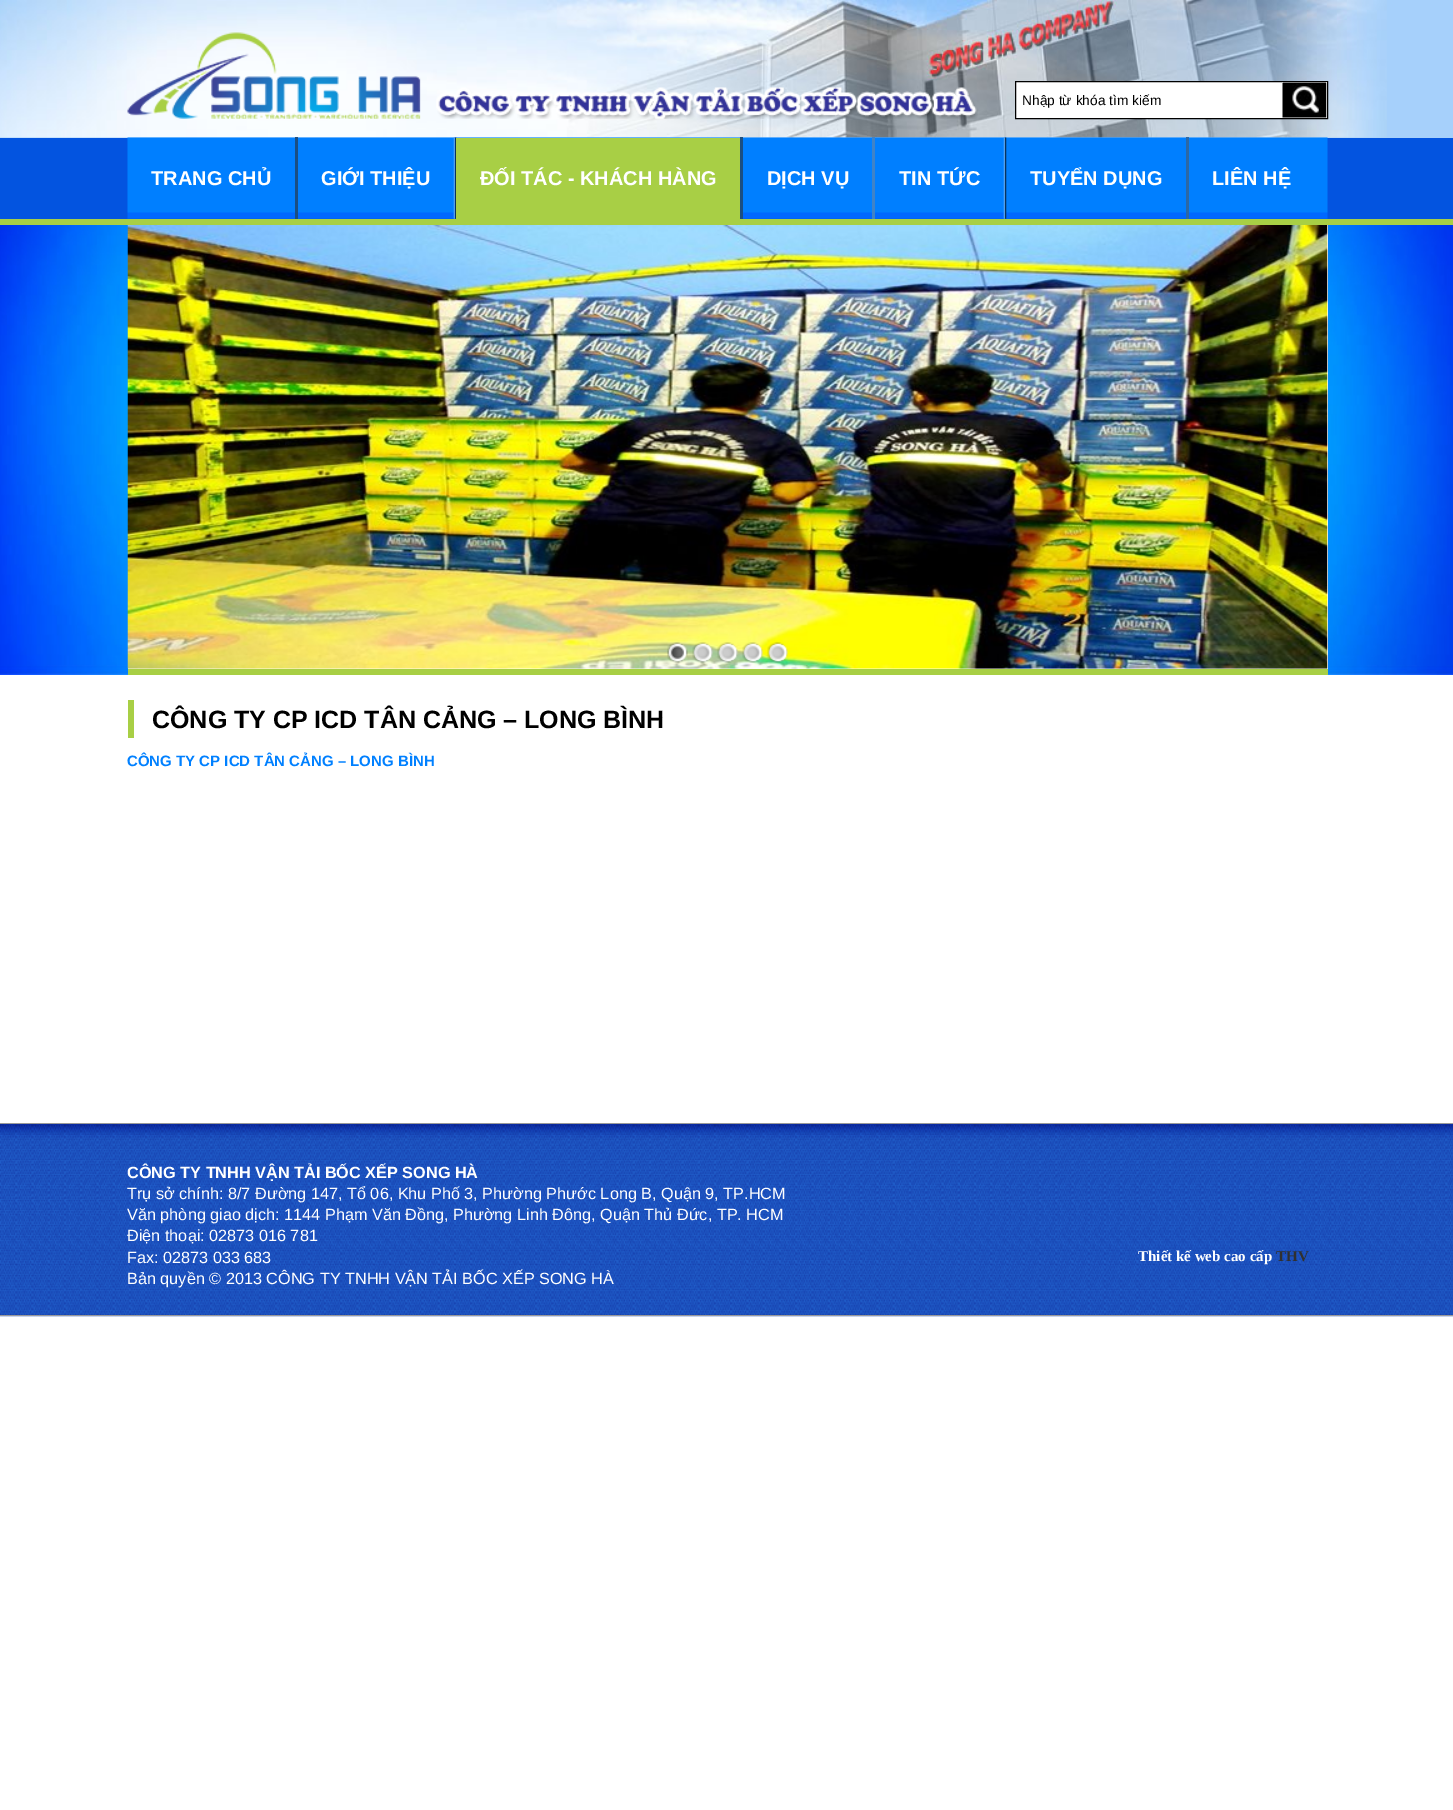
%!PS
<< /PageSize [1453 1810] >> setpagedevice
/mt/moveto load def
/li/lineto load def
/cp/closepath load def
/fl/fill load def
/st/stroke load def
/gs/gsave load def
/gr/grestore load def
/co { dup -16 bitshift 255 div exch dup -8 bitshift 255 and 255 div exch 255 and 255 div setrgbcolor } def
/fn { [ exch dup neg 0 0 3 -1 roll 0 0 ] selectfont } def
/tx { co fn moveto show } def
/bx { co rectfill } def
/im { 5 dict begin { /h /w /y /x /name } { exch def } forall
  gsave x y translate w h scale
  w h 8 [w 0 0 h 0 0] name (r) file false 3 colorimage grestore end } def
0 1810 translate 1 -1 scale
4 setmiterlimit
0 0 1453 1810 16#FFFFFF bx
0 0 1453 138 16#A6D0FB bx
(media/1.raw) 0 0 1387 138 im
(media/2.raw) 127 32 294 87 im
(media/3.raw) 436 87 542 32 im
16#FFFFFF co
1015.5 81.5 mt 1327.5 81.5 li 1327.5 118.5 li 1015.5 118.5 li cp gs fl gr
16#000000 co
st
(media/4.raw) 1282 82 45 36 im
0 138 1453 81 16#0354E0 bx
0 219 1453 6 16#A8CF45 bx
(media/5.raw) 127 137 1201 82 im
295 137 3 82 16#1B4E81 bx
(media/6.raw) 453 137 4 82 im
740 137 3 82 16#1B4E81 bx
456 138 284 81 16#A8CF45 bx
872 137 3 82 16#4083C7 bx
(media/7.raw) 1003 137 4 82 im
1186 137 3 82 16#2D68A4 bx
(media/8.raw) 0 225 1453 450 im
128 225 1200 444 16#FFFFFF bx
128 669 1200 6 16#A8CF45 bx
(media/9.raw) 127 225 1201 444 im
(media/10.raw) 667 642 21 21 im
(media/11.raw) 692 642 21 21 im
(media/12.raw) 717 642 21 21 im
(media/13.raw) 742 642 21 21 im
(media/14.raw) 767 642 21 21 im
128 700 6 38 16#A8CF45 bx
(media/15.raw) 0 1124 1453 193 im
0 1123 1453 1 16#999999 bx
0 1315 1453 1 16#999999 bx
(Nhập từ khóa tìm kiếm) 1022 105 /LiberationSans-Regular 13.75 16#000000 tx
(TRANG CHỦ) 151 185 /LiberationSans-Bold 20 16#FFFFFF tx
(GIỚI THIỆU) 321 185 /LiberationSans-Bold 20 16#FFFFFF tx
(ĐỐI TÁC - KHÁCH HÀNG) 480 185 /LiberationSans-Bold 20 16#FFFFFF tx
(DỊCH VỤ) 767 185 /LiberationSans-Bold 20 16#FFFFFF tx
(TIN TỨC) 899 185 /LiberationSans-Bold 20 16#FFFFFF tx
(TUYỂN DỤNG) 1030 185 /LiberationSans-Bold 20 16#FFFFFF tx
(LIÊN HỆ) 1212 185 /LiberationSans-Bold 20 16#FFFFFF tx
(CÔNG TY CP ICD TÂN CẢNG – LONG BÌNH) 152 728 /LiberationSans-Bold 25 16#000000 tx
(CÔNG TY CP ICD TÂN CẢNG – LONG BÌNH) 127 766 /LiberationSans-Bold 15 16#0080FF tx
(CÔNG TY TNHH VẬN TẢI BỐC XẾP SONG HÀ) 127 1178 /LiberationSans-Bold 16.25 16#FFFFFF tx
(Trụ sở chính: 8/7 Đường 147, Tổ 06, Khu Phố 3, Phường Phước Long B, Quận 9, TP.HCM) 127 1199 /LiberationSans-Regular 16.25 16#FFFFFF tx
(Văn phòng giao dịch: 1144 Phạm Văn Đồng, Phường Linh Đông, Quận Thủ Đức, TP. HCM) 127 1220 /LiberationSans-Regular 16.25 16#FFFFFF tx
(Điện thoại: 02873 016 781) 127 1241 /LiberationSans-Regular 16.25 16#FFFFFF tx
(Fax: 02873 033 683) 127 1263 /LiberationSans-Regular 16.25 16#FFFFFF tx
(Bản quyền © 2013 CÔNG TY TNHH VẬN TẢI BỐC XẾP SONG HÀ) 127 1284 /LiberationSans-Regular 16.25 16#FFFFFF tx
(Thiết kế web cao cấp) 1138 1261 /LiberationSerif-Bold 15 16#FFFFFF tx
(THV) 1276 1261 /LiberationSerif-Bold 15 16#303030 tx
showpage
